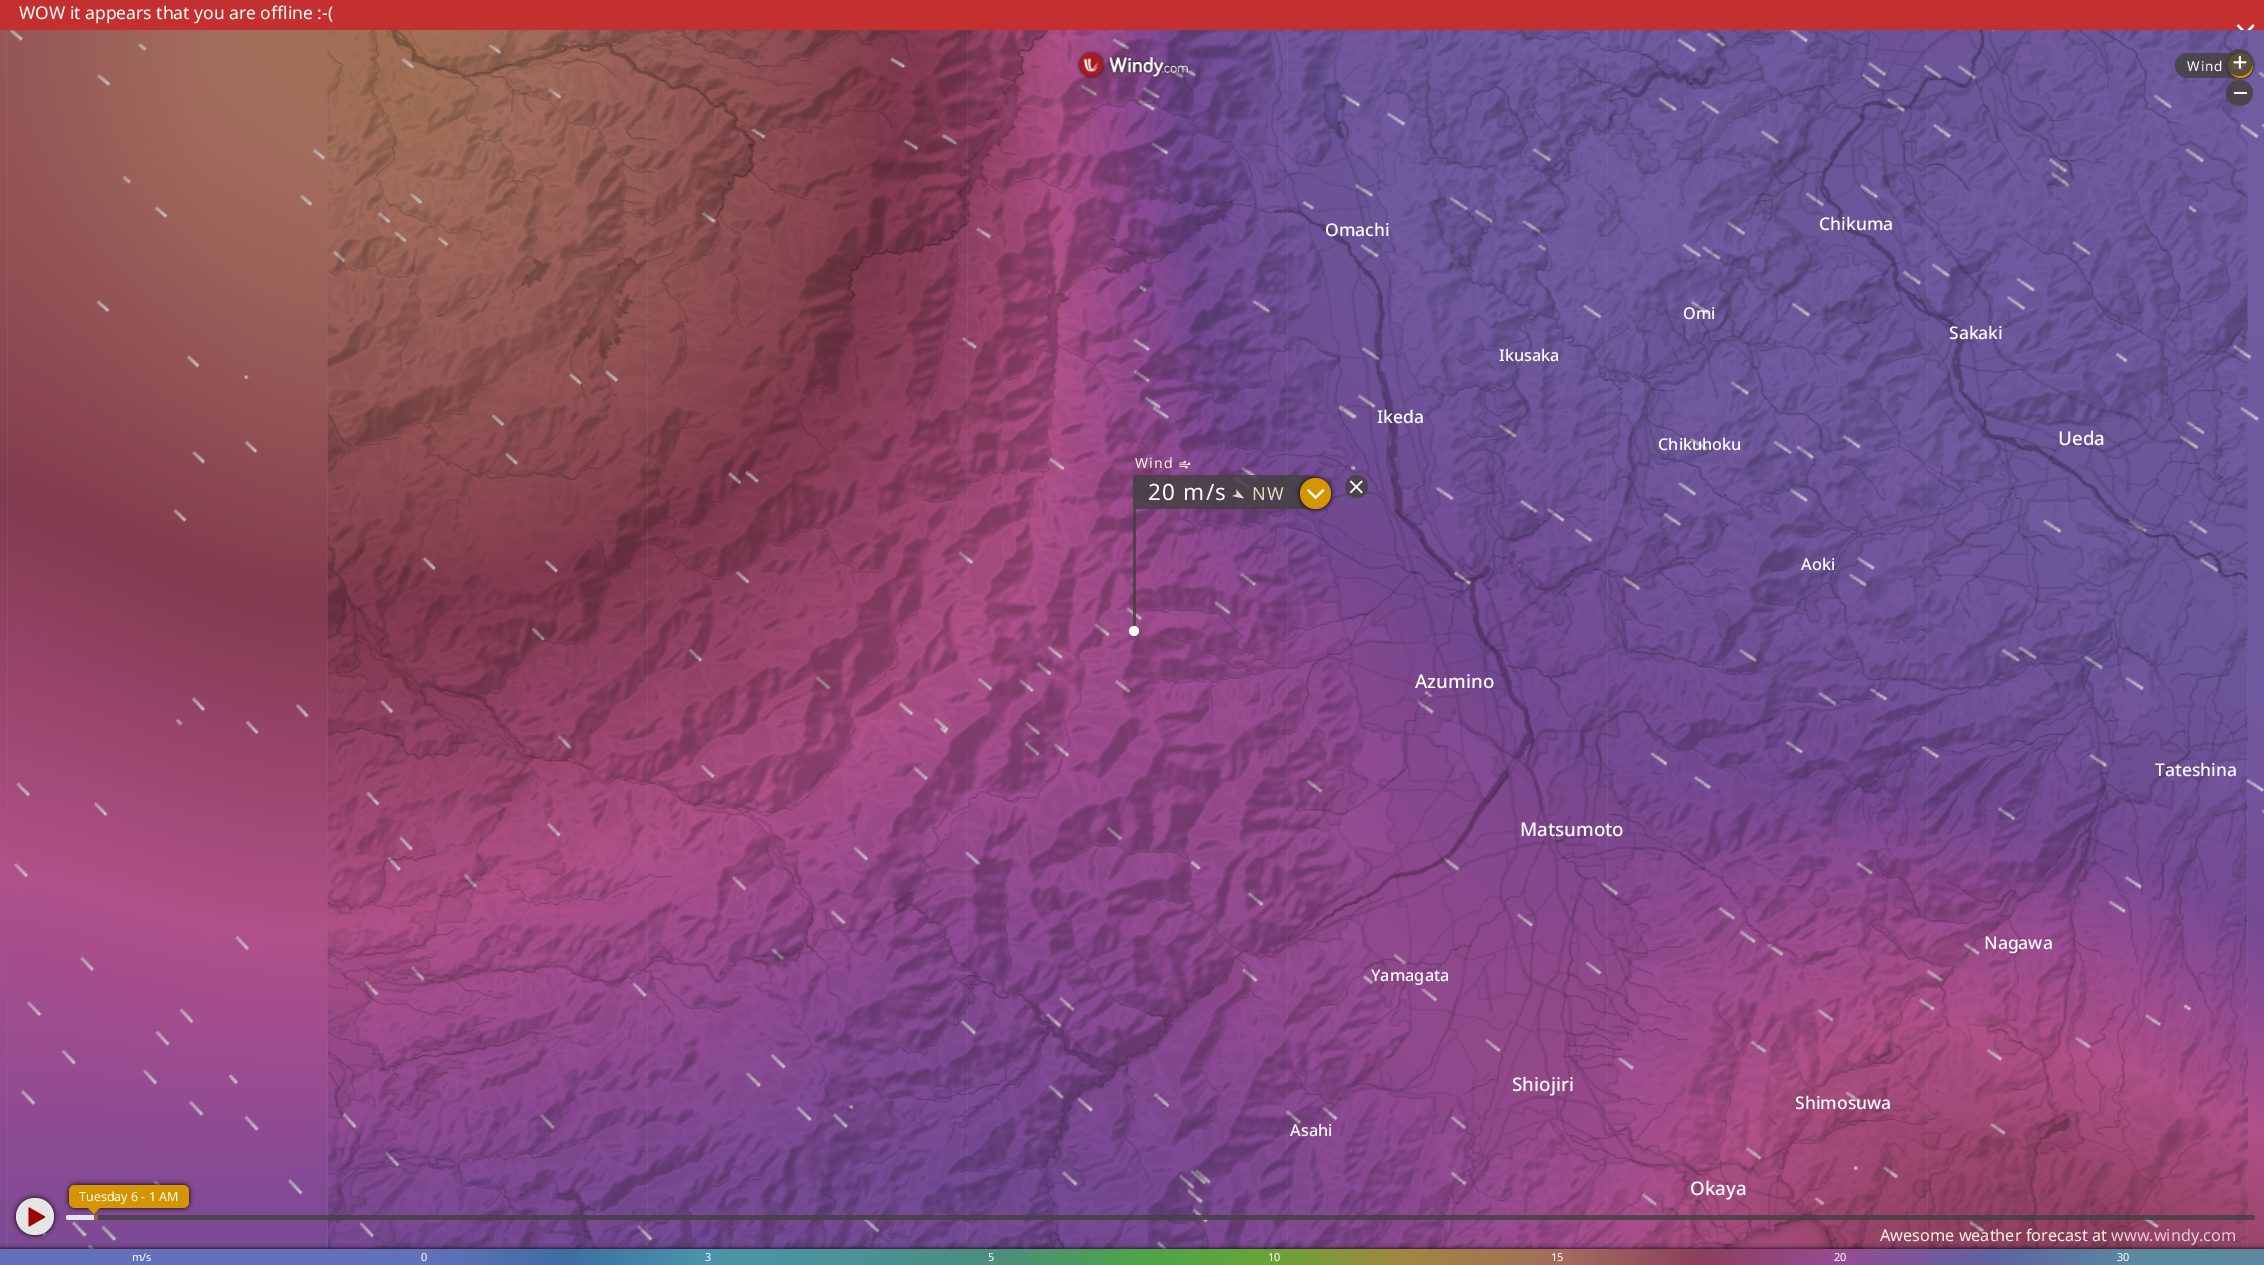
%!PS
<< /PageSize [2264 1265] /PageUsesTransparency true >> setpagedevice
/mt/moveto load def
/li/lineto load def
/ct/curveto load def
/cp/closepath load def
/fl/fill load def
/gs/gsave load def
/gr/grestore load def
/co { dup -16 bitshift 255 div exch dup -8 bitshift 255 and 255 div exch 255 and 255 div setrgbcolor } def
/fn { [ exch dup neg 0 0 3 -1 roll 0 0 ] selectfont } def
/tx { co fn moveto show } def
/bx { co rectfill } def
/al { dup .setfillconstantalpha .setstrokeconstantalpha } def
/ci { newpath 0 360 arc closepath } def
/rr { 5 dict begin { /r /h /w /y /x } { exch def } forall
  x r add y moveto x w add y 2 copy h add r arct x w add y h add x 1 index r arct
  x y h add x y r arct x y 2 copy exch w add exch r arct closepath end } def
/sh { 12 dict begin { /a /b /q /h /w /y /x } { exch def } forall gsave /was 0 def
  9 -2 -9 { dup b mul 4 div /e exch def 1 sub .425 mul 2.718 exch exp 1 add a .99 .min exch div /now exch def
    1 1 now sub 1 was sub div sub al /was now def
    w h .min e 2 mul add 0 gt { x e sub y e sub w e 2 mul add h e 2 mul add
      q e add b .6 mul add w h .min 2 div e add .min 0 .max rr fill } if } for grestore end } def
/im { 5 dict begin { /h /w /y /x /name } { exch def } forall
  gsave x y translate w h scale
  w h 8 [w 0 0 h 0 0] name (r) file false 3 colorimage grestore end } def
0 .pushpdf14devicefilter
0 1265 translate 1 -1 scale
4 setmiterlimit
0 0 2264 1265 16#FFFFFF bx
0 0 2264 30 16#C42F2F bx
(media/1.raw) 2236 24 19 6 im
(media/10.raw) 967 30 321 305 im
(media/9.raw) 647 30 321 305 im
(media/8.raw) 327 30 321 305 im
(media/7.raw) 7 30 321 305 im
(media/11.raw) 1287 30 321 305 im
(media/12.raw) 1607 30 321 305 im
(media/13.raw) 1927 30 320 305 im
2247 30 17 305 16#6F5CA1 bx
(media/18.raw) 967 335 321 320 im
(media/17.raw) 647 335 321 320 im
(media/16.raw) 327 335 321 320 im
(media/15.raw) 7 335 321 320 im
(media/19.raw) 1287 335 321 320 im
(media/20.raw) 1607 335 321 320 im
(media/21.raw) 1927 335 320 320 im
2247 335 17 320 16#705BA1 bx
(media/26.raw) 967 655 321 320 im
(media/25.raw) 647 655 321 320 im
(media/24.raw) 327 655 321 320 im
(media/23.raw) 7 655 321 320 im
(media/27.raw) 1287 655 321 320 im
(media/28.raw) 1607 655 321 320 im
(media/29.raw) 1927 655 321 320 im
(media/30.raw) 2247 655 17 320 im
(media/35.raw) 967 975 321 274 im
(media/34.raw) 647 975 321 274 im
(media/33.raw) 327 975 321 274 im
(media/32.raw) 7 975 321 274 im
(media/36.raw) 1287 975 321 274 im
(media/37.raw) 1607 975 321 274 im
(media/38.raw) 1927 975 321 274 im
(media/39.raw) 2247 975 17 274 im
(media/40.raw) 10 30 2254 1219 im
(media/43.raw) 967 30 321 305 im
(media/2.raw) 1077 50 29 29 im
(media/3.raw) 1107 55 83 24 im
(media/44.raw) 1287 30 321 305 im
(media/45.raw) 1607 30 321 305 im
(media/46.raw) 1927 30 321 305 im
0.84 al
16#444141 co
2175 53 78 25 12.5 rr fl
1 al
16#000000 co
2228 53 25 25 12.5 1.5 1 sh
16#D49500 co
2240.5 65.5 12.5 ci fl
(media/4.raw) 2232 61 15 10 im
0.84 al
16#444141 co
2239.5 62.5 13.5 ci fl
1 al
(media/5.raw) 2233 55 14 14 im
0.84 al
2226 80 27 26 13 rr fl
1 al
2234 92 13 2 16#FFFFFF bx
(media/6.raw) 0 30 8 305 im
(media/14.raw) 0 335 8 320 im
(media/22.raw) 0 655 8 320 im
(media/31.raw) 0 975 8 274 im
(media/42.raw) 647 30 321 305 im
(media/41.raw) 327 30 321 305 im
(media/49.raw) 967 335 321 320 im
(media/48.raw) 647 335 321 320 im
(media/47.raw) 327 335 321 320 im
(media/50.raw) 1287 335 321 320 im
(media/51.raw) 1607 335 321 320 im
(media/52.raw) 1927 335 321 320 im
(media/55.raw) 967 655 321 320 im
(media/54.raw) 647 655 321 320 im
(media/53.raw) 327 655 321 320 im
(media/56.raw) 1287 655 321 320 im
(media/57.raw) 1607 655 321 320 im
(media/58.raw) 1927 655 321 320 im
(media/59.raw) 328 975 320 274 im
(media/60.raw) 648 975 320 274 im
(media/61.raw) 968 975 320 274 im
(media/62.raw) 1288 975 320 274 im
(media/63.raw) 1608 975 320 274 im
(media/64.raw) 1928 975 320 274 im
0.84 al
1133 475 3 156 16#444141 bx
1 al
16#FFFFFF co
1134 631 5 ci fl
0.84 al
16#444141 co
1135 475 mt 1306 475 li 1315.5 475 1323 482.5 1323 492 ct 1323 501.5 1315.5 509 1306 509 ct 1135 509 li cp fl
1 al
(media/65.raw) 1179 460 12 9 im
(media/66.raw) 1232 489 12 10 im
16#000000 co
1300 478 31 31 15.5 2.5 1 sh
16#D49500 co
1315.5 493.5 15.5 ci fl
(media/67.raw) 1306 489 19 11 im
0.84 al
16#444141 co
1356.5 486.5 11.5 ci fl
1 al
(media/68.raw) 1349 480 14 14 im
16#000000 co
16 1198 38 37 18.5 2.5 1 sh
16#E5E5E5 co
16 1198 38 37 18.5 rr fl
(media/69.raw) 28 1207 18 20 im
16#000000 co
69 1185 120 23 6 2.5 1 sh
16#D49500 co
69 1185 120 23 6 rr fl
87.5 1207.5 mt 100 1207.5 li 94 1214 li cp fl
0.84 al
16#444141 co
66 1215 2189 5 2.5 rr fl
1 al
16#E5E5E5 co
68.5 1215 mt 94 1215 li 94 1220 li 68.5 1220 li 67 1220 66 1219 66 1217.5 ct 66 1216 67 1215 68.5 1215 ct cp fl
94 1215 4 5 16#946051 bx
16#000000 co
0 1249 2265 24 0 2.5 1 sh
gs 0 1249 mt 2264 1249 li 2264 1265 li 0 1265 li cp clip newpath
<< /ShadingType 2 /ColorSpace /DeviceRGB /Coords [0 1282 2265 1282] /Extend [true true] /Function << /FunctionType 3 /Domain [0 1] /Functions [<< /FunctionType 2 /Domain [0 1] /C0 [.384 .443 .722] /C1 [.384 .443 .722] /N 1 >> << /FunctionType 2 /Domain [0 1] /C0 [.384 .443 .722] /C1 [.239 .431 .639] /N 1 >> << /FunctionType 2 /Domain [0 1] /C0 [.239 .431 .639] /C1 [.29 .58 .667] /N 1 >> << /FunctionType 2 /Domain [0 1] /C0 [.29 .58 .667] /C1 [.29 .573 .58] /N 1 >> << /FunctionType 2 /Domain [0 1] /C0 [.29 .573 .58] /C1 [.302 .557 .486] /N 1 >> << /FunctionType 2 /Domain [0 1] /C0 [.302 .557 .486] /C1 [.298 .643 .298] /N 1 >> << /FunctionType 2 /Domain [0 1] /C0 [.298 .643 .298] /C1 [.404 .643 .212] /N 1 >> << /FunctionType 2 /Domain [0 1] /C0 [.404 .643 .212] /C1 [.635 .529 .251] /N 1 >> << /FunctionType 2 /Domain [0 1] /C0 [.635 .529 .251] /C1 [.635 .427 .361] /N 1 >> << /FunctionType 2 /Domain [0 1] /C0 [.635 .427 .361] /C1 [.553 .247 .361] /N 1 >> << /FunctionType 2 /Domain [0 1] /C0 [.553 .247 .361] /C1 [.592 .294 .569] /N 1 >> << /FunctionType 2 /Domain [0 1] /C0 [.592 .294 .569] /C1 [.373 .392 .627] /N 1 >> << /FunctionType 2 /Domain [0 1] /C0 [.373 .392 .627] /C1 [.357 .533 .631] /N 1 >> << /FunctionType 2 /Domain [0 1] /C0 [.357 .533 .631] /C1 [.357 .533 .631] /N 1 >>] /Bounds [.19 .25 .31 .38 .44 .5 .56 .62 .69 .75 .81 .88 .94] /Encode [0 1 0 1 0 1 0 1 0 1 0 1 0 1 0 1 0 1 0 1 0 1 0 1 0 1 0 1] >> >> shfill gr
(WOW it appears that you are offline :-\() 19 19 /NotoSans-Regular 17.5 16#FFFFFF tx
/NotoSans-Regular 13.5 fn
2187 71 mt 1 0 (Wind) ashow
/NotoSans-Regular 14 fn
16#FFF3E1 co
1135 468 mt 1.25 0 (Wind) ashow
/NotoSans-Regular 22.5 fn
16#FFFFFF co
1148 500 mt 1.25 0 (20 m/s) ashow
/NotoSans-Regular 18 fn
16#E4D5BD co
1252 500 mt 1.25 0 (NW) ashow
(Omachi) 1325 236 /NotoSans-Medium 17.5 16#FFFFFF tx
(Chikuma) 1819 230 /NotoSans-Medium 17.5 16#FFFFFF tx
(Omi) 1683 319 /NotoSans-Medium 16.25 16#FFFFFF tx
(Sakaki) 1949 339 /NotoSans-Medium 17.5 16#FFFFFF tx
(Ikusaka) 1499 361 /NotoSans-Medium 16.25 16#FFFFFF tx
(Ikeda) 1377 423 /NotoSans-Medium 17.5 16#FFFFFF tx
(Chikuhoku) 1658 450 /NotoSans-Medium 16.25 16#FFFFFF tx
(Aoki) 1801 570 /NotoSans-Medium 16.25 16#FFFFFF tx
(Ueda) 2058 445 /NotoSans-Medium 18.75 16#FFFFFF tx
(Azumino) 1415 688 /NotoSans-Medium 18.75 16#FFFFFF tx
(Matsumoto) 1520 836 /NotoSans-Medium 18.75 16#FFFFFF tx
(Tateshina) 2155 776 /NotoSans-Medium 17.5 16#FFFFFF tx
(Nagawa) 1984 949 /NotoSans-Medium 17.5 16#FFFFFF tx
(Yamagata) 1371 981 /NotoSans-Medium 16.25 16#FFFFFF tx
(Shiojiri) 1512 1091 /NotoSans-Medium 18.75 16#FFFFFF tx
(Asahi) 1290 1136 /NotoSans-Medium 16.25 16#FFFFFF tx
(Shimosuwa) 1795 1109 /NotoSans-Medium 17.5 16#FFFFFF tx
(Okaya) 1690 1195 /NotoSans-Medium 18.75 16#FFFFFF tx
(Tuesday 6 - 1 AM) 79 1201 /NotoSans-Regular 12.5 16#FFFFFF tx
(Awesome weather forecast at) 1880 1241 /NotoSans-Regular 16.25 16#FFF3E1 tx
(www.windy.com) 2111 1241 /NotoSans-Regular 16.25 16#E6CECE tx
(m/s) 132 1261 /NotoSans-Regular 11 16#FFFFFF tx
(0) 421 1261 /NotoSans-Regular 11 16#FFFFFF tx
(3) 705 1261 /NotoSans-Regular 11 16#FFFFFF tx
(5) 988 1261 /NotoSans-Regular 11 16#FFFFFF tx
(10) 1268 1261 /NotoSans-Regular 11 16#FFFFFF tx
(15) 1551 1261 /NotoSans-Regular 11 16#FFFFFF tx
(20) 1834 1261 /NotoSans-Regular 11 16#FFFFFF tx
(30) 2117 1261 /NotoSans-Regular 11 16#FFFFFF tx
.poppdf14devicefilter showpage
